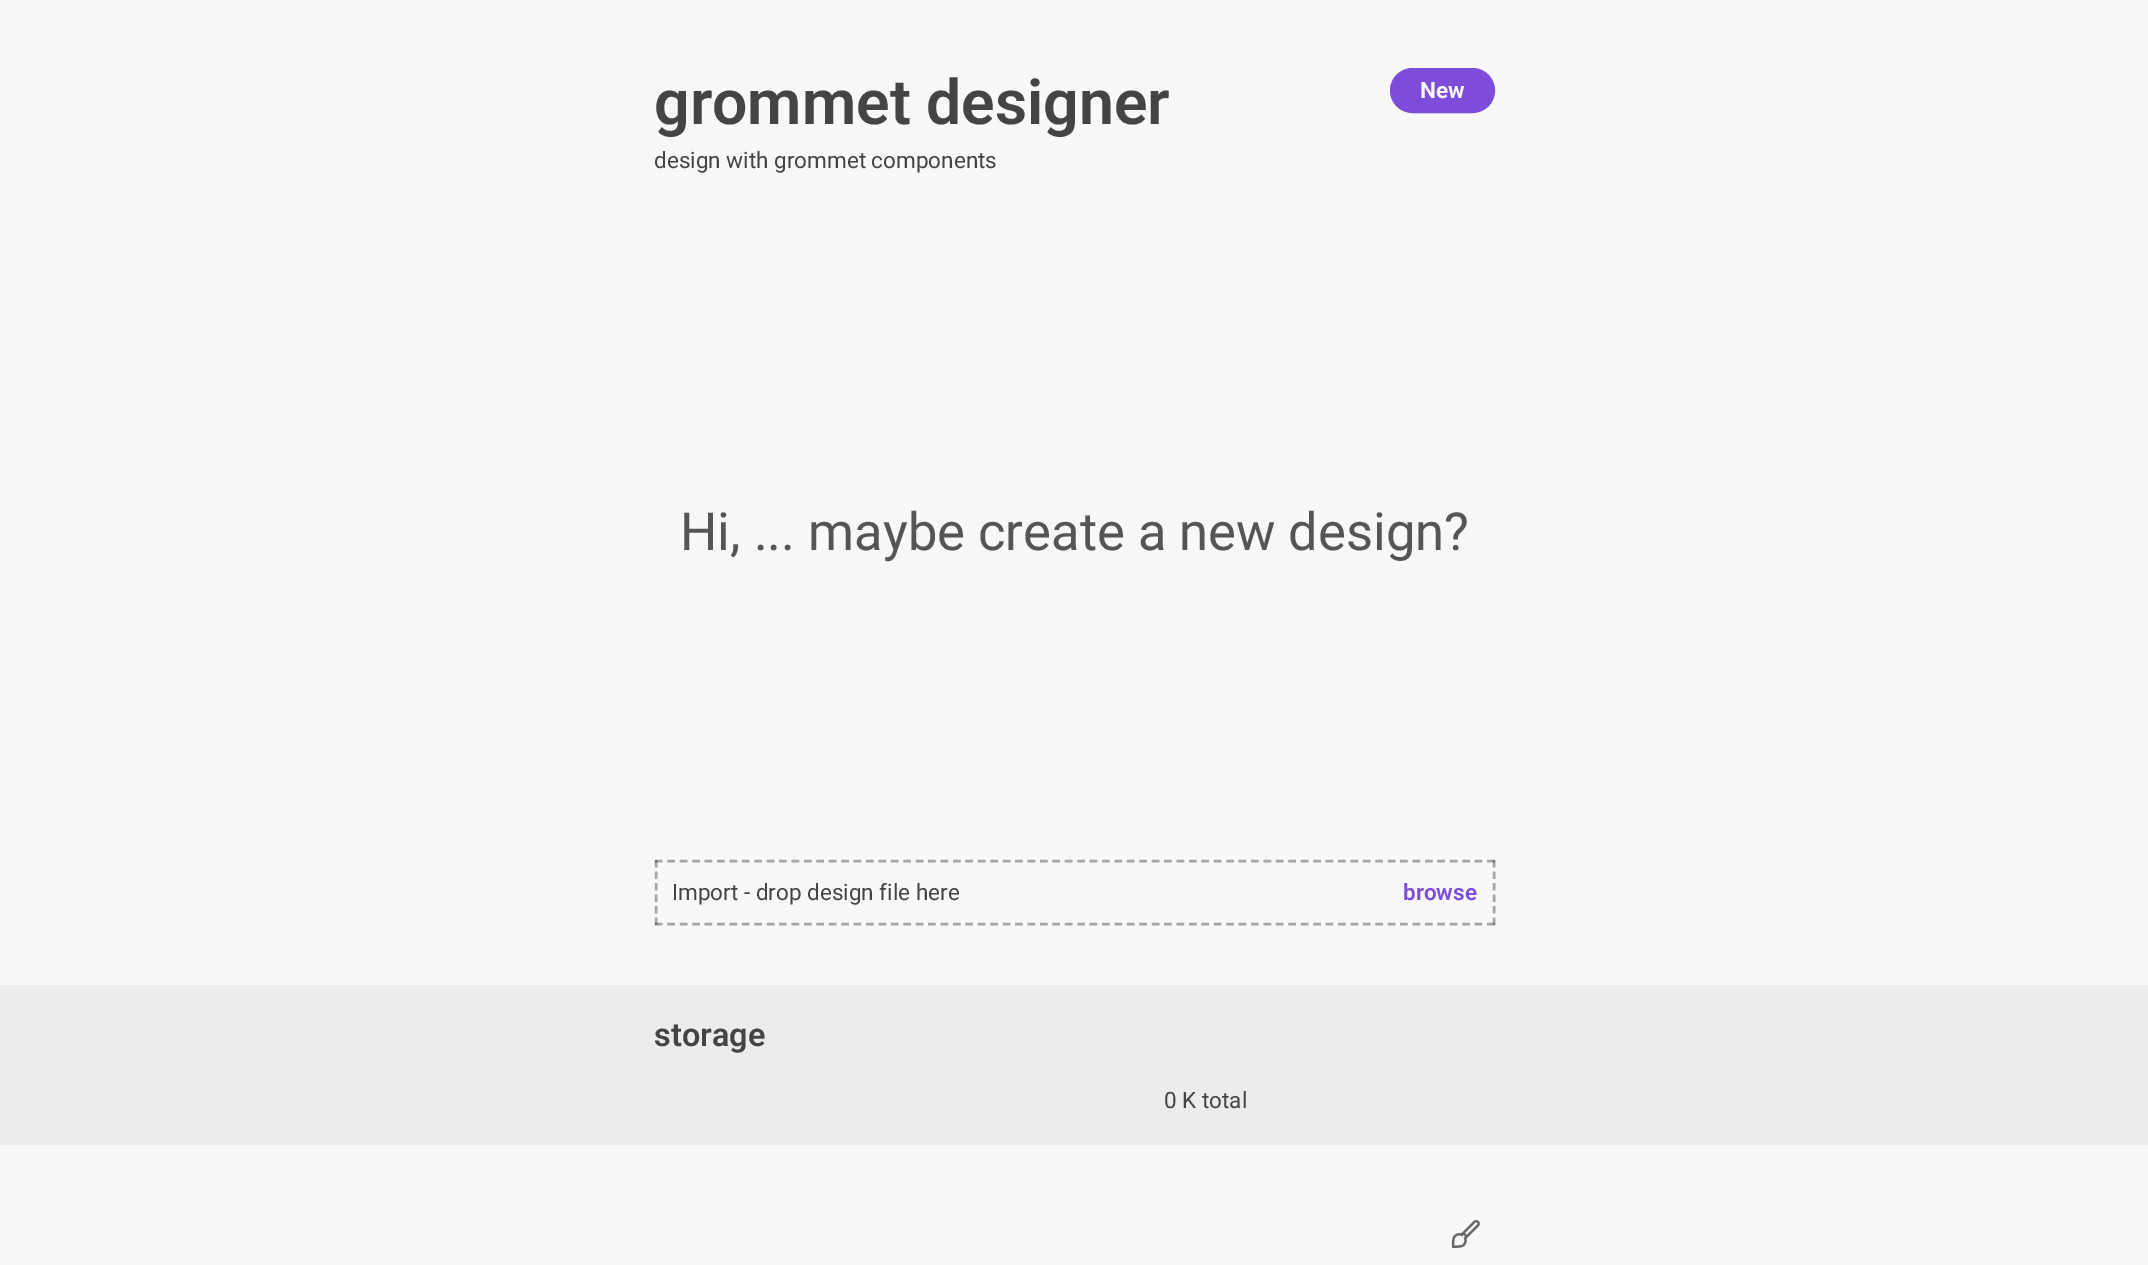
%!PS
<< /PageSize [2148 1265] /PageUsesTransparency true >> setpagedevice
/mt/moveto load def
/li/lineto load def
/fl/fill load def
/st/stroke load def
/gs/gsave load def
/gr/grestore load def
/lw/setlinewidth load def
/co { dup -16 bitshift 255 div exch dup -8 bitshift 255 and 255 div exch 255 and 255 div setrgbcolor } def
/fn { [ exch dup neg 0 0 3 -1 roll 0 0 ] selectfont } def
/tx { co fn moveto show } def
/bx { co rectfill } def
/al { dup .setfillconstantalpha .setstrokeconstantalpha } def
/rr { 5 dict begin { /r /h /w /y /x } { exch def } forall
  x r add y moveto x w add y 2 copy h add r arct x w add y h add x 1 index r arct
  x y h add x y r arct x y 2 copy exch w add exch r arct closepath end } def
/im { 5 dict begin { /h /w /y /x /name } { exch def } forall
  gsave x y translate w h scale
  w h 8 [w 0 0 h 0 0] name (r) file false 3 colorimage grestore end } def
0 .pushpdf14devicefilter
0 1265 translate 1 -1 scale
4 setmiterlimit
0 0 2148 1265 16#F8F8F8 bx
16#7D4CDB co
1391.5 69.5 102 42 21 rr gs fl gr
3 lw
st
16#A6A6A6 co
2.5 lw
[7.5 4.92] 0 setdash
655 861 mt 1495 861 li st
0.33 al
16#000000 co
[7.5 4] 0 setdash
1494 860 mt 1494 925 li st
[7.5 4.92] 0 setdash
655 924 mt 1495 924 li st
[7.5 4] 0 setdash
656 860 mt 656 925 li st
1 al
0 985 2148 160 16#ECECEC bx
(media/1.raw) 1451 1220 29 28 im
(grommet designer) 654 124 /Roboto-SemiBold 62.5 16#444444 tx
(New) 1420 98 /Roboto-Bold 22.5 16#F8F8F8 tx
(design with grommet components) 654 168 /Roboto-Regular 22.5 16#444444 tx
(Hi, ... maybe create a new design?) 680 550 /Roboto-Regular 52.5 16#555555 tx
(Import - drop design file here) 672 900 /Roboto-Regular 22.5 16#444444 tx
(browse) 1403 900 /Roboto-SemiBold 22.5 16#7D4CDB tx
(storage) 654 1046 /Roboto-SemiBold 32.5 16#444444 tx
(0 K total) 1164 1108 /Roboto-Regular 22.5 16#444444 tx
.poppdf14devicefilter showpage
